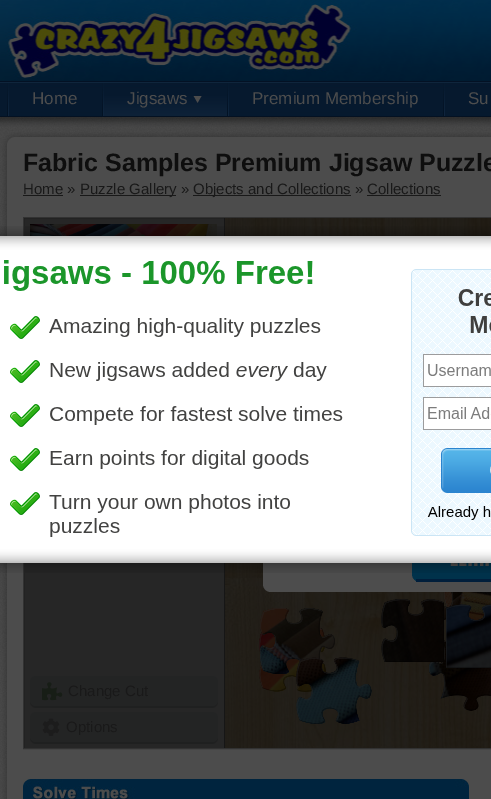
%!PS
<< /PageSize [491 799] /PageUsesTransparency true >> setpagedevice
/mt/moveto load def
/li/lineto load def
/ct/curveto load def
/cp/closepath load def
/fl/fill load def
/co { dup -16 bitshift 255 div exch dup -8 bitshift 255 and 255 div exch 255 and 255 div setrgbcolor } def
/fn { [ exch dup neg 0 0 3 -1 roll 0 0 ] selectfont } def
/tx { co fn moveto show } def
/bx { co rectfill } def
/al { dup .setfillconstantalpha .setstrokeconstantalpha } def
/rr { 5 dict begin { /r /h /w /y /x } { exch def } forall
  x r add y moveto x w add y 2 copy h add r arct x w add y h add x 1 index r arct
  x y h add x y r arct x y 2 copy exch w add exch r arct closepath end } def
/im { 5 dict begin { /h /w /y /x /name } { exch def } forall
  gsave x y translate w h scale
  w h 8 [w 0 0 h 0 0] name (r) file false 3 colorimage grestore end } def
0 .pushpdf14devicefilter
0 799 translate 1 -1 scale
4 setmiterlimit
0 0 491 799 16#FFFFFF bx
(media/1.raw) 0 117 491 682 im
(media/2.raw) 0 81 491 36 im
(media/3.raw) 0 0 491 81 im
(media/4.raw) 7 83 2 33 im
(media/5.raw) 104 96 123 20 im
(media/4.raw) 102 83 2 33 im
(media/6.raw) 193 96 9 7 im
(media/4.raw) 227 83 2 33 im
(media/4.raw) 443 83 2 33 im
(media/7.raw) 0 117 491 10 im
(media/8.raw) 2 132 489 13 im
(media/9.raw) 2 145 489 654 im
23 195 40 1 16#191919 bx
80 195 96 1 16#191919 bx
193 195 158 1 16#191919 bx
367 195 74 1 16#191919 bx
16#323232 co
23.5 217.5 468 531 rectstroke
224 218 1 530 16#2D2D2D bx
(media/10.raw) 30 224 187 12 im
16#3F4041 co
30 700 mt 30 702 li 30 705 33 708 36 708 ct 212 708 li 215 708 218 705 218 702 ct 218 700 li 218 703 215 706 212 706 ct 36 706 li 33 706 30 703 30 700 ct cp fl
16#474849 co
30 676 188 30 6 rr fl
(media/11.raw) 42 682 21 19 im
16#3F4041 co
30 736 mt 30 738 li 30 741 33 744 36 744 ct 212 744 li 215 744 218 741 218 738 ct 218 736 li 218 739 215 742 212 742 ct 36 742 li 33 742 30 739 30 736 ct cp fl
16#474849 co
30 712 188 30 6 rr fl
(media/12.raw) 42 718 18 18 im
(media/13.raw) 225 218 266 530 im
(media/14.raw) 23 779 446 20 im
(Home) 32 104 /LiberationSans-Regular 17 16#4D4D4D tx
(Jigsaws) 127 104 /LiberationSans-Regular 17 16#4D4D4D tx
(Premium Membership) 252 104 /LiberationSans-Regular 17 16#4D4D4D tx
(Su) 468 104 /LiberationSans-Regular 17 16#4D4D4D tx
(Fabric Samples Premium Jigsaw Puzzle) 23 171 /LiberationSans-Bold 25 16#0E0E0E tx
(Home ») 23 194 /LiberationSans-Regular 15 16#191919 tx
(Puzzle Gallery ») 80 194 /LiberationSans-Regular 15 16#191919 tx
(Objects and Collections » Collections) 193 194 /LiberationSans-Regular 15 16#191919 tx
(Change Cut) 68 696 /LiberationSans-Regular 15 16#323232 tx
(Options) 66 732 /LiberationSans-Regular 15 16#323232 tx
0.5 al
24 218 467 530 16#000000 bx
1 al
16#4D4D4D co
263 419 mt 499 419 li 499 584 li 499 588.5 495.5 592 491 592 ct 271 592 li 266.5 592 263 588.5 263 584 ct cp fl
16#00324B co
412 537 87 45 8 rr fl
416 579 75 3 16#001E3B bx
(media/15.raw) 0 226 491 347 im
.poppdf14devicefilter showpage
